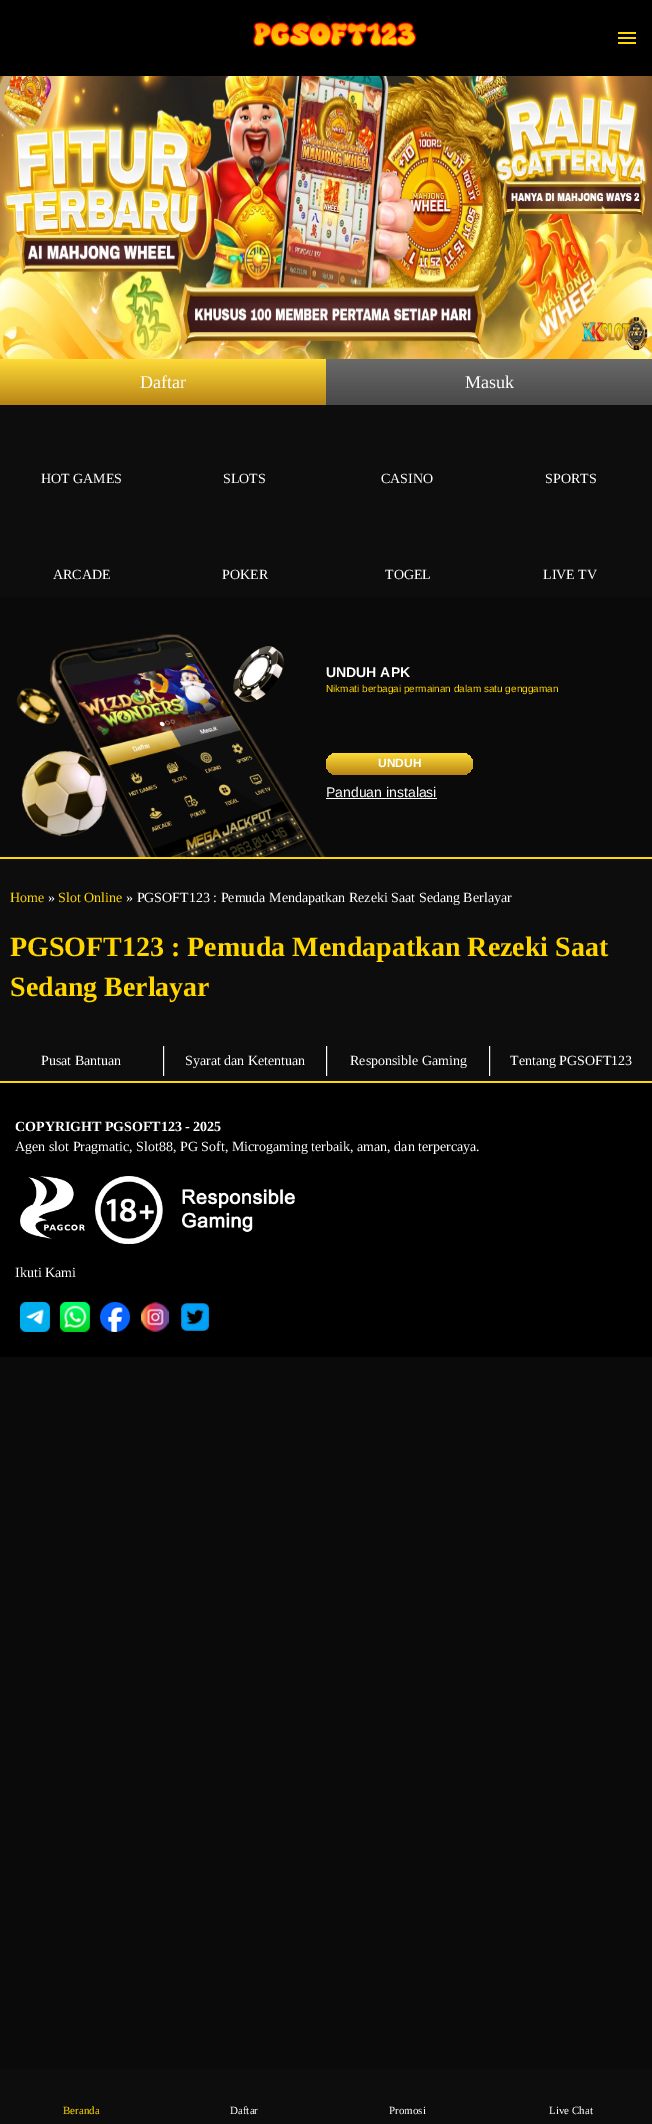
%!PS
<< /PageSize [652 2124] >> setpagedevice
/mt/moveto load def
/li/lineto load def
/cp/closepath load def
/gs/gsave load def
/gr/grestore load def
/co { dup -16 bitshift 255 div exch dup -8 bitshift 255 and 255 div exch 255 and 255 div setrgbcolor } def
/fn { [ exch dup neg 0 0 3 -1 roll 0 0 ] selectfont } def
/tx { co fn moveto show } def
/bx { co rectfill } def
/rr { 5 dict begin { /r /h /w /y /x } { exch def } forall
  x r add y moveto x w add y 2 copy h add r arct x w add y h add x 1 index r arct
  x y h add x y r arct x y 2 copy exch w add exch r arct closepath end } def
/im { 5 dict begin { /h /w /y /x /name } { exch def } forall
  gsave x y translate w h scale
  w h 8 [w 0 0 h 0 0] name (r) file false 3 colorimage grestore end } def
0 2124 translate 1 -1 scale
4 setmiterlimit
0 0 652 2124 16#0A0A0A bx
0 0 652 76 16#000000 bx
(media/1.raw) 252 21 165 26 im
618 37 18 2 16#FFD900 bx
618 32 18 2 16#FFD900 bx
618 42 18 2 16#FFD900 bx
(media/2.raw) 0 76 652 283 im
gs 0 359 mt 326 359 li 326 405 li 0 405 li cp clip newpath
<< /ShadingType 2 /ColorSpace /DeviceRGB /Coords [163 359 163 405] /Extend [true true] /Function << /FunctionType 2 /Domain [0 1] /C0 [.996 .859 .216] /C1 [.722 .518 .086] /N 1 >> >> shfill gr
gs 326 359 mt 652 359 li 652 405 li 326 405 li cp clip newpath
<< /ShadingType 2 /ColorSpace /DeviceRGB /Coords [489 359 489 405] /Extend [true true] /Function << /FunctionType 2 /Domain [0 1] /C0 [.416 .416 .416] /C1 [.282 .282 .282] /N 1 >> >> shfill gr
0 405 652 192 16#0D0D0D bx
(media/3.raw) 16 634 310 223 im
gs 326 753 147 22 11 rr clip newpath
<< /ShadingType 2 /ColorSpace /DeviceRGB /Coords [400 753 400 775] /Extend [true true] /Function << /FunctionType 2 /Domain [0 1] /C0 [.996 .859 .216] /C1 [.722 .518 .086] /N 1 >> >> shfill gr
326 798 111 1 16#FFFFFF bx
0 1083 652 274 16#000000 bx
0 857 652 2 16#FFD900 bx
0 859 652 222 16#0D0D0D bx
163 1046 1 30 16#FFFFFF bx
164 1046 1 30 16#3C3C3E bx
326 1046 1 30 16#FFFFFF bx
327 1046 1 30 16#3C3C3E bx
489 1046 1 30 16#FFFFFF bx
490 1046 1 30 16#3C3C3E bx
0 1081 652 2 16#FFD900 bx
(media/4.raw) 20 1176 65 63 im
(media/5.raw) 95 1176 200 68 im
(media/6.raw) 20 1302 30 30 im
(media/7.raw) 60 1302 30 30 im
(media/8.raw) 100 1302 30 30 im
(media/9.raw) 141 1302 29 30 im
(media/10.raw) 181 1303 29 29 im
0 2069 652 55 16#0D0D0D bx
(Daftar) 140 388 /LiberationSerif-Regular 18 16#FFFFFF tx
(Masuk) 465 388 /LiberationSerif-Regular 18 16#FFFFFF tx
(HOT GAMES) 41 483 /LiberationSerif-Regular 14 16#FFFFFF tx
(SLOTS) 223 483 /LiberationSerif-Regular 14 16#FFFFFF tx
(CASINO) 381 483 /LiberationSerif-Regular 14 16#FFFFFF tx
(SPORTS) 545 483 /LiberationSerif-Regular 14 16#FFFFFF tx
(ARCADE) 53 579 /LiberationSerif-Regular 14 16#FFFFFF tx
(POKER) 222 579 /LiberationSerif-Regular 14 16#FFFFFF tx
(TOGEL) 385 579 /LiberationSerif-Regular 14 16#FFFFFF tx
(LIVE TV) 543 579 /LiberationSerif-Regular 14 16#FFFFFF tx
(UNDUH APK) 326 677 /LiberationSans-Bold 14 16#FFFFFF tx
(Nikmati berbagai permainan dalam satu genggaman) 326 692 /LiberationSans-Regular 10 16#FFD600 tx
(UNDUH) 378 767 /LiberationSans-Bold 12 16#FFFFFF tx
(Panduan instalasi) 326 797 /LiberationSans-Regular 14 16#FFFFFF tx
(Home) 10 902 /LiberationSerif-Regular 14 16#FFD600 tx
(») 48 902 /LiberationSerif-Regular 14 16#FFFFFF tx
(Slot Online) 58 902 /LiberationSerif-Regular 14 16#FFD600 tx
(» PGSOFT123 : Pemuda Mendapatkan Rezeki Saat Sedang Berlayar) 126 902 /LiberationSerif-Regular 14 16#FFFFFF tx
(PGSOFT123 : Pemuda Mendapatkan Rezeki Saat) 10 956 /LiberationSerif-Bold 28 16#FFD600 tx
(Sedang Berlayar) 10 996 /LiberationSerif-Bold 28 16#FFD600 tx
(Pusat Bantuan) 41 1065 /LiberationSerif-Regular 14 16#FFFFFF tx
(Syarat dan Ketentuan) 185 1065 /LiberationSerif-Regular 14 16#FFFFFF tx
(Responsible Gaming) 350 1065 /LiberationSerif-Regular 14 16#FFFFFF tx
(Tentang PGSOFT123) 510 1065 /LiberationSerif-Regular 14 16#FFFFFF tx
(COPYRIGHT PGSOFT123 - 2025) 15 1131 /LiberationSerif-Bold 14 16#FFFFFF tx
(Agen slot Pragmatic, Slot88, PG Soft, Microgaming terbaik, aman, dan terpercaya.) 15 1151 /LiberationSerif-Regular 14 16#FFFFFF tx
(Ikuti Kami) 15 1277 /LiberationSerif-Regular 14 16#FFFFFF tx
(Beranda) 63 2114 /LiberationSerif-Regular 11 16#FFD600 tx
(Daftar) 230 2114 /LiberationSerif-Regular 11 16#FFFFFF tx
(Promosi) 389 2114 /LiberationSerif-Regular 11 16#FFFFFF tx
(Live Chat) 549 2114 /LiberationSerif-Regular 11 16#FFFFFF tx
showpage
